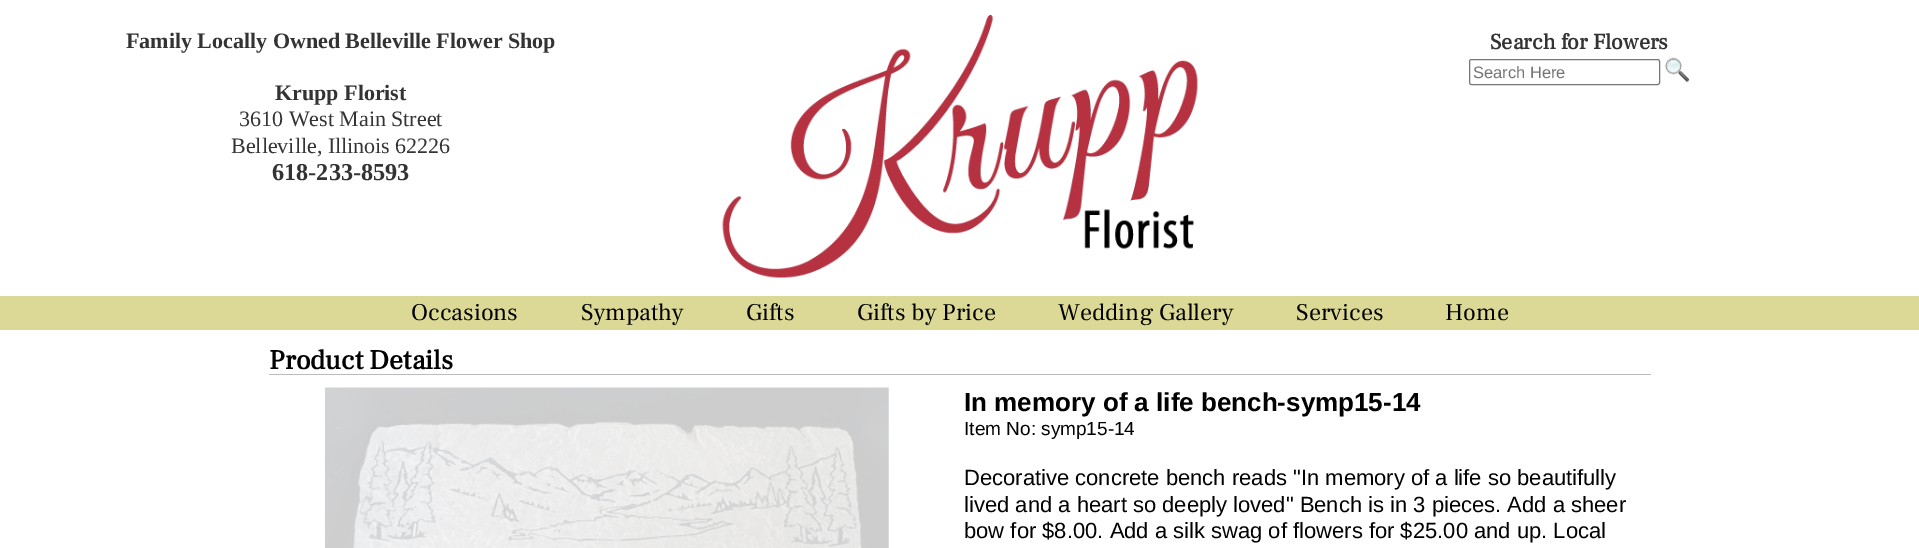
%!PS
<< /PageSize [1919 548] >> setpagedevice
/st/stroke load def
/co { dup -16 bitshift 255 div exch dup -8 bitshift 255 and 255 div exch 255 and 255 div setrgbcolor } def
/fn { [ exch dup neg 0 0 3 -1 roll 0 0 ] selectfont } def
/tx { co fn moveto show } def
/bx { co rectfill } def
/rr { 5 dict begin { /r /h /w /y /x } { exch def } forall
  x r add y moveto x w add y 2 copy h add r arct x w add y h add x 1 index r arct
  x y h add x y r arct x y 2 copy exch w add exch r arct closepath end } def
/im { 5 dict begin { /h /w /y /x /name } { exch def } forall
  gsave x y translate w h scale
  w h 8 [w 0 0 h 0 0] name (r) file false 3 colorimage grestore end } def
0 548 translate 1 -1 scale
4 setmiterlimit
0 0 1919 548 16#FFFFFF bx
(media/1.raw) 722 15 476 263 im
16#767676 co
1469.5 59.5 190 25 2 rr st
(media/2.raw) 1665 57 25 26 im
0 296 1919 34 16#DBD995 bx
269 374 1382 1 16#BCBCBC bx
(media/3.raw) 325 387 564 161 im
(Family Locally Owned Belleville Flower Shop) 126 48 /LiberationSerif-Bold 22 16#333333 tx
(Krupp Florist) 275 100 /LiberationSerif-Bold 22 16#333333 tx
(3610 West Main Street) 239 126 /LiberationSerif-Regular 22 16#333333 tx
(Belleville, Illinois 62226) 231 153 /LiberationSerif-Regular 22 16#333333 tx
(618-233-8593) 272 180 /LiberationSerif-Bold 24.25 16#333333 tx
(Search for Flowers) 1490 49 /FrankRuhlLibre-Bold 22 16#333333 tx
(Search Here) 1473 78 /LiberationSans-Regular 16.5 16#757575 tx
(Occasions) 411 320 /FrankRuhlLibre-Regular 24 16#000000 tx
(Sympathy) 581 320 /FrankRuhlLibre-Regular 24 16#000000 tx
(Gifts) 746 320 /FrankRuhlLibre-Regular 24 16#000000 tx
(Gifts by Price) 857 320 /FrankRuhlLibre-Regular 24 16#000000 tx
(Wedding Gallery) 1058 320 /FrankRuhlLibre-Regular 24 16#000000 tx
(Services) 1296 320 /FrankRuhlLibre-Regular 24 16#000000 tx
(Home) 1445 320 /FrankRuhlLibre-Regular 24 16#000000 tx
(Product Details) 269 369 /FrankRuhlLibre-Bold 27.5 16#000000 tx
(In memory of a life bench-symp15-14) 964 411 /LiberationSans-Bold 26 16#000000 tx
(Item No: symp15-14) 964 435 /LiberationSans-Regular 19 16#000000 tx
(Decorative concrete bench reads "In memory of a life so beautifully) 964 485 /LiberationSans-Regular 22 16#000000 tx
(lived and a heart so deeply loved" Bench is in 3 pieces. Add a sheer) 964 512 /LiberationSans-Regular 22 16#000000 tx
(bow for $8.00. Add a silk swag of flowers for $25.00 and up. Local) 964 538 /LiberationSans-Regular 22 16#000000 tx
showpage
